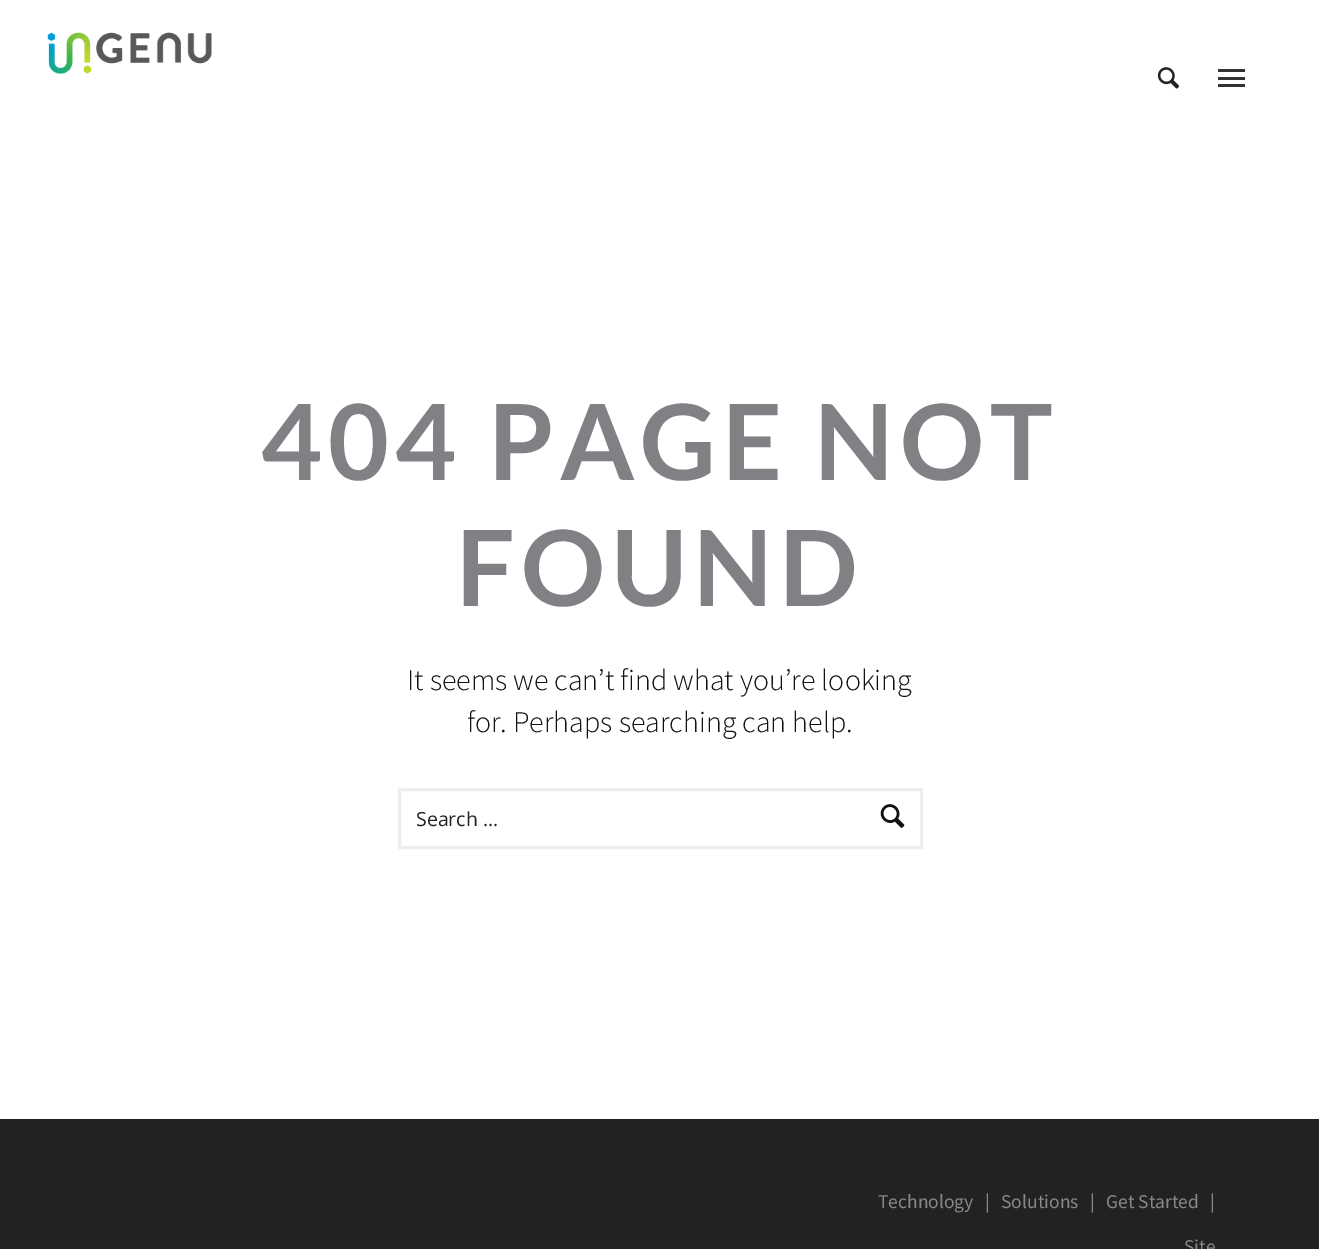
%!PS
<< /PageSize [1319 1249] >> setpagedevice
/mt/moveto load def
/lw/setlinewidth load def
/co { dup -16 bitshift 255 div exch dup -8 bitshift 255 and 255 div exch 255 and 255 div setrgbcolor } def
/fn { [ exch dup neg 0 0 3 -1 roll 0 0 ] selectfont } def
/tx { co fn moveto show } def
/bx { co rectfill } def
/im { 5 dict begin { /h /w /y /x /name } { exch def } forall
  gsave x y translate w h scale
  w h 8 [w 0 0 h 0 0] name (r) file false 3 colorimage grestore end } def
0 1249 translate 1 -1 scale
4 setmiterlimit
0 0 1319 1249 16#FFFFFF bx
(media/1.raw) 47 32 165 43 im
(media/2.raw) 1157 67 23 22 im
1218 69 27 3 16#323232 bx
1218 77 27 3 16#323232 bx
1218 84 27 3 16#323232 bx
16#EEEEEE co
3 lw
399.5 789.5 522 58 rectstroke
(media/3.raw) 880 804 25 24 im
0 1119 1319 130 16#222222 bx
/Lato-Bold 105 fn
16#808184 co
261 480 mt 6 0 (404 PAGE NOT) ashow
456 606 mt 6 0 (FOUND) ashow
(It seems we can’t find what you’re looking) 407 690 /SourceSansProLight-Light 30 16#111111 tx
(for. Perhaps searching can help.) 467 732 /SourceSansProLight-Light 30 16#111111 tx
(Search ...) 416 826 /OpenSans-Regular 19.5 16#222222 tx
(Technology) 878 1208 /SourceSansPro-Regular 19.5 16#888888 tx
(|) 985 1208 /SourceSansPro-Regular 19.5 16#888888 tx
(Solutions) 1001 1208 /SourceSansPro-Regular 19.5 16#888888 tx
(|) 1090 1208 /SourceSansPro-Regular 19.5 16#888888 tx
(Get Started) 1106 1208 /SourceSansPro-Regular 19.5 16#888888 tx
(|) 1210 1208 /SourceSansPro-Regular 19.5 16#888888 tx
(Site) 1184 1253 /SourceSansPro-Regular 19.5 16#888888 tx
showpage
